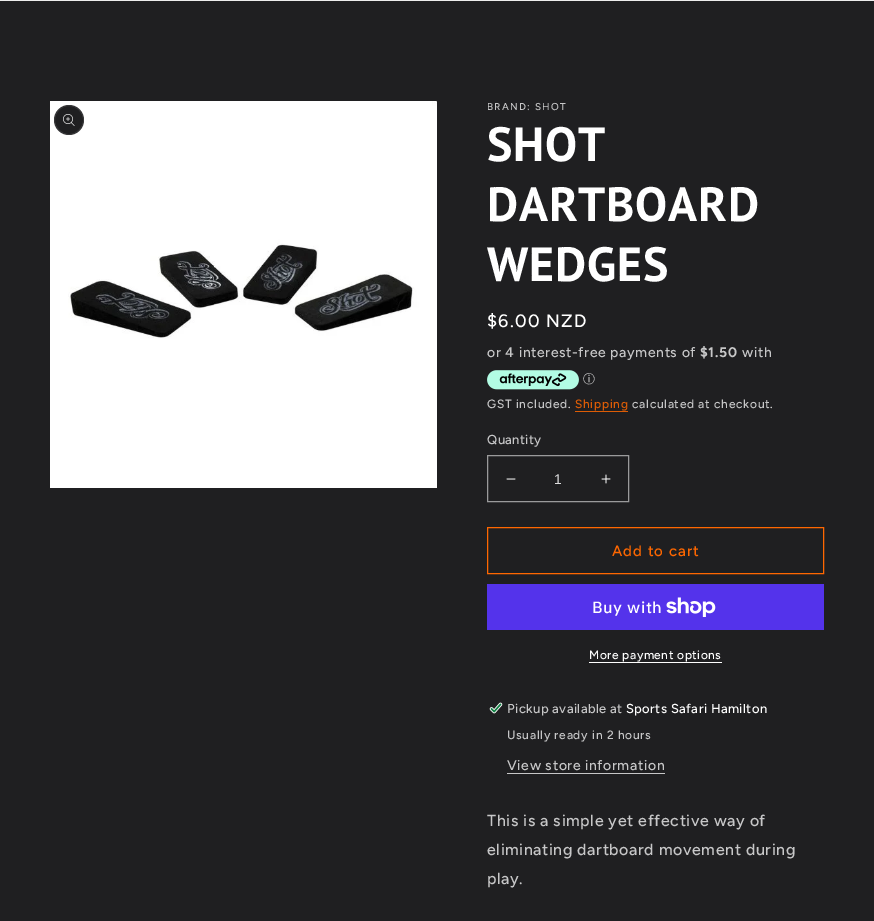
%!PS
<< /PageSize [874 921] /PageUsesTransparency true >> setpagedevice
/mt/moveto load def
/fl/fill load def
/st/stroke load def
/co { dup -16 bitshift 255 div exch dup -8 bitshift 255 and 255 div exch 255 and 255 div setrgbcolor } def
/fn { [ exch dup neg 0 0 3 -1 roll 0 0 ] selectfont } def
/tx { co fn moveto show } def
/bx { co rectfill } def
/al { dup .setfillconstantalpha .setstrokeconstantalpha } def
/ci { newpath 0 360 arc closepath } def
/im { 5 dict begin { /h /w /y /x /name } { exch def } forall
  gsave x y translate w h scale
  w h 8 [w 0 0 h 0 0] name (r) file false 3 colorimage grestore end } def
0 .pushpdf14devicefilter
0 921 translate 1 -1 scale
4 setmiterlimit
0 0 874 921 16#1F1F21 bx
0 0 874 1 16#EDEDED bx
(media/1.raw) 50 101 387 387 im
16#1F1F21 co
69 120 15 ci fl
0.1 al
16#FFFFFF co
69 120 14.5 ci st
1 al
(media/2.raw) 63 114 12 12 im
(media/3.raw) 487 370 92 20 im
575 411 53 1 16#DD5C05 bx
(media/4.raw) 506 478 10 2 im
(media/5.raw) 601 474 10 10 im
16#9A9A9B co
487.5 455.5 141 46 rectstroke
16#FF6700 co
487.5 527.5 336 46 rectstroke
487 584 337 46 16#5433EB bx
(media/6.raw) 666 597 50 20 im
589 662 133 1 16#FFFFFF bx
(media/7.raw) 489 702 14 12 im
507 773 158 1 16#C7C7C8 bx
/Figtree-Medium 10 fn
487 110 mt 1.25 0 (BRAND: SHOT) ashow
/PTSans-Bold 48 fn
16#FFFFFF co
487 161 mt .75 0 (SHOT) ashow
487 221 mt .75 0 (DARTBOARD) ashow
487 281 mt .75 0 (WEDGES) ashow
/Figtree-Medium 18 fn
487 327 mt 1.25 0 ($6.00 NZD) ashow
/Figtree-Medium 14 fn
16#C7C7C8 co
487 357 mt .6 0 (or 4 interest-free payments of) ashow
/Figtree-Bold 14 fn
700 357 mt .6 0 ($1.50) ashow
/Figtree-Medium 14 fn
742 357 mt .6 0 (with) ashow
(ⓘ) 583 383 /WenQuanYiZenHei-Medium 12 16#C7C7C8 tx
/Figtree-Medium 12 fn
487 408 mt .7 0 (GST included.) ashow
16#DD5C05 co
575 408 mt .7 0 (Shipping) ashow
16#C7C7C8 co
632 408 mt .7 0 (calculated at checkout.) ashow
/Figtree-Medium 13 fn
487 444 mt .4 0 (Quantity) ashow
(1) 554 484 /LiberationSans-Regular 14 16#DDDDDE tx
/Figtree-Medium 15 fn
16#FF6700 co
612 556 mt 1 0 (Add to cart) ashow
/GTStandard-Medium 16 fn
16#FFFFFF co
592 613 mt .6 0 (Buy with) ashow
/Figtree-Medium 12 fn
589 659 mt .5 0 (More payment options) ashow
/Figtree-Medium 13 fn
16#C7C7C8 co
507 713 mt .4 0 (Pickup available at) ashow
16#FFFFFF co
626 713 mt .4 0 (Sports Safari Hamilton) ashow
/Figtree-Medium 12 fn
16#C7C7C8 co
507 739 mt .7 0 (Usually ready in 2 hours) ashow
/Figtree-Medium 14 fn
507 770 mt .6 0 (View store information) ashow
/Figtree-Medium 16 fn
487 826 mt .6 0 (This is a simple yet effective way of) ashow
487 855 mt .6 0 (eliminating dartboard movement during) ashow
487 884 mt .6 0 (play.) ashow
.poppdf14devicefilter showpage
